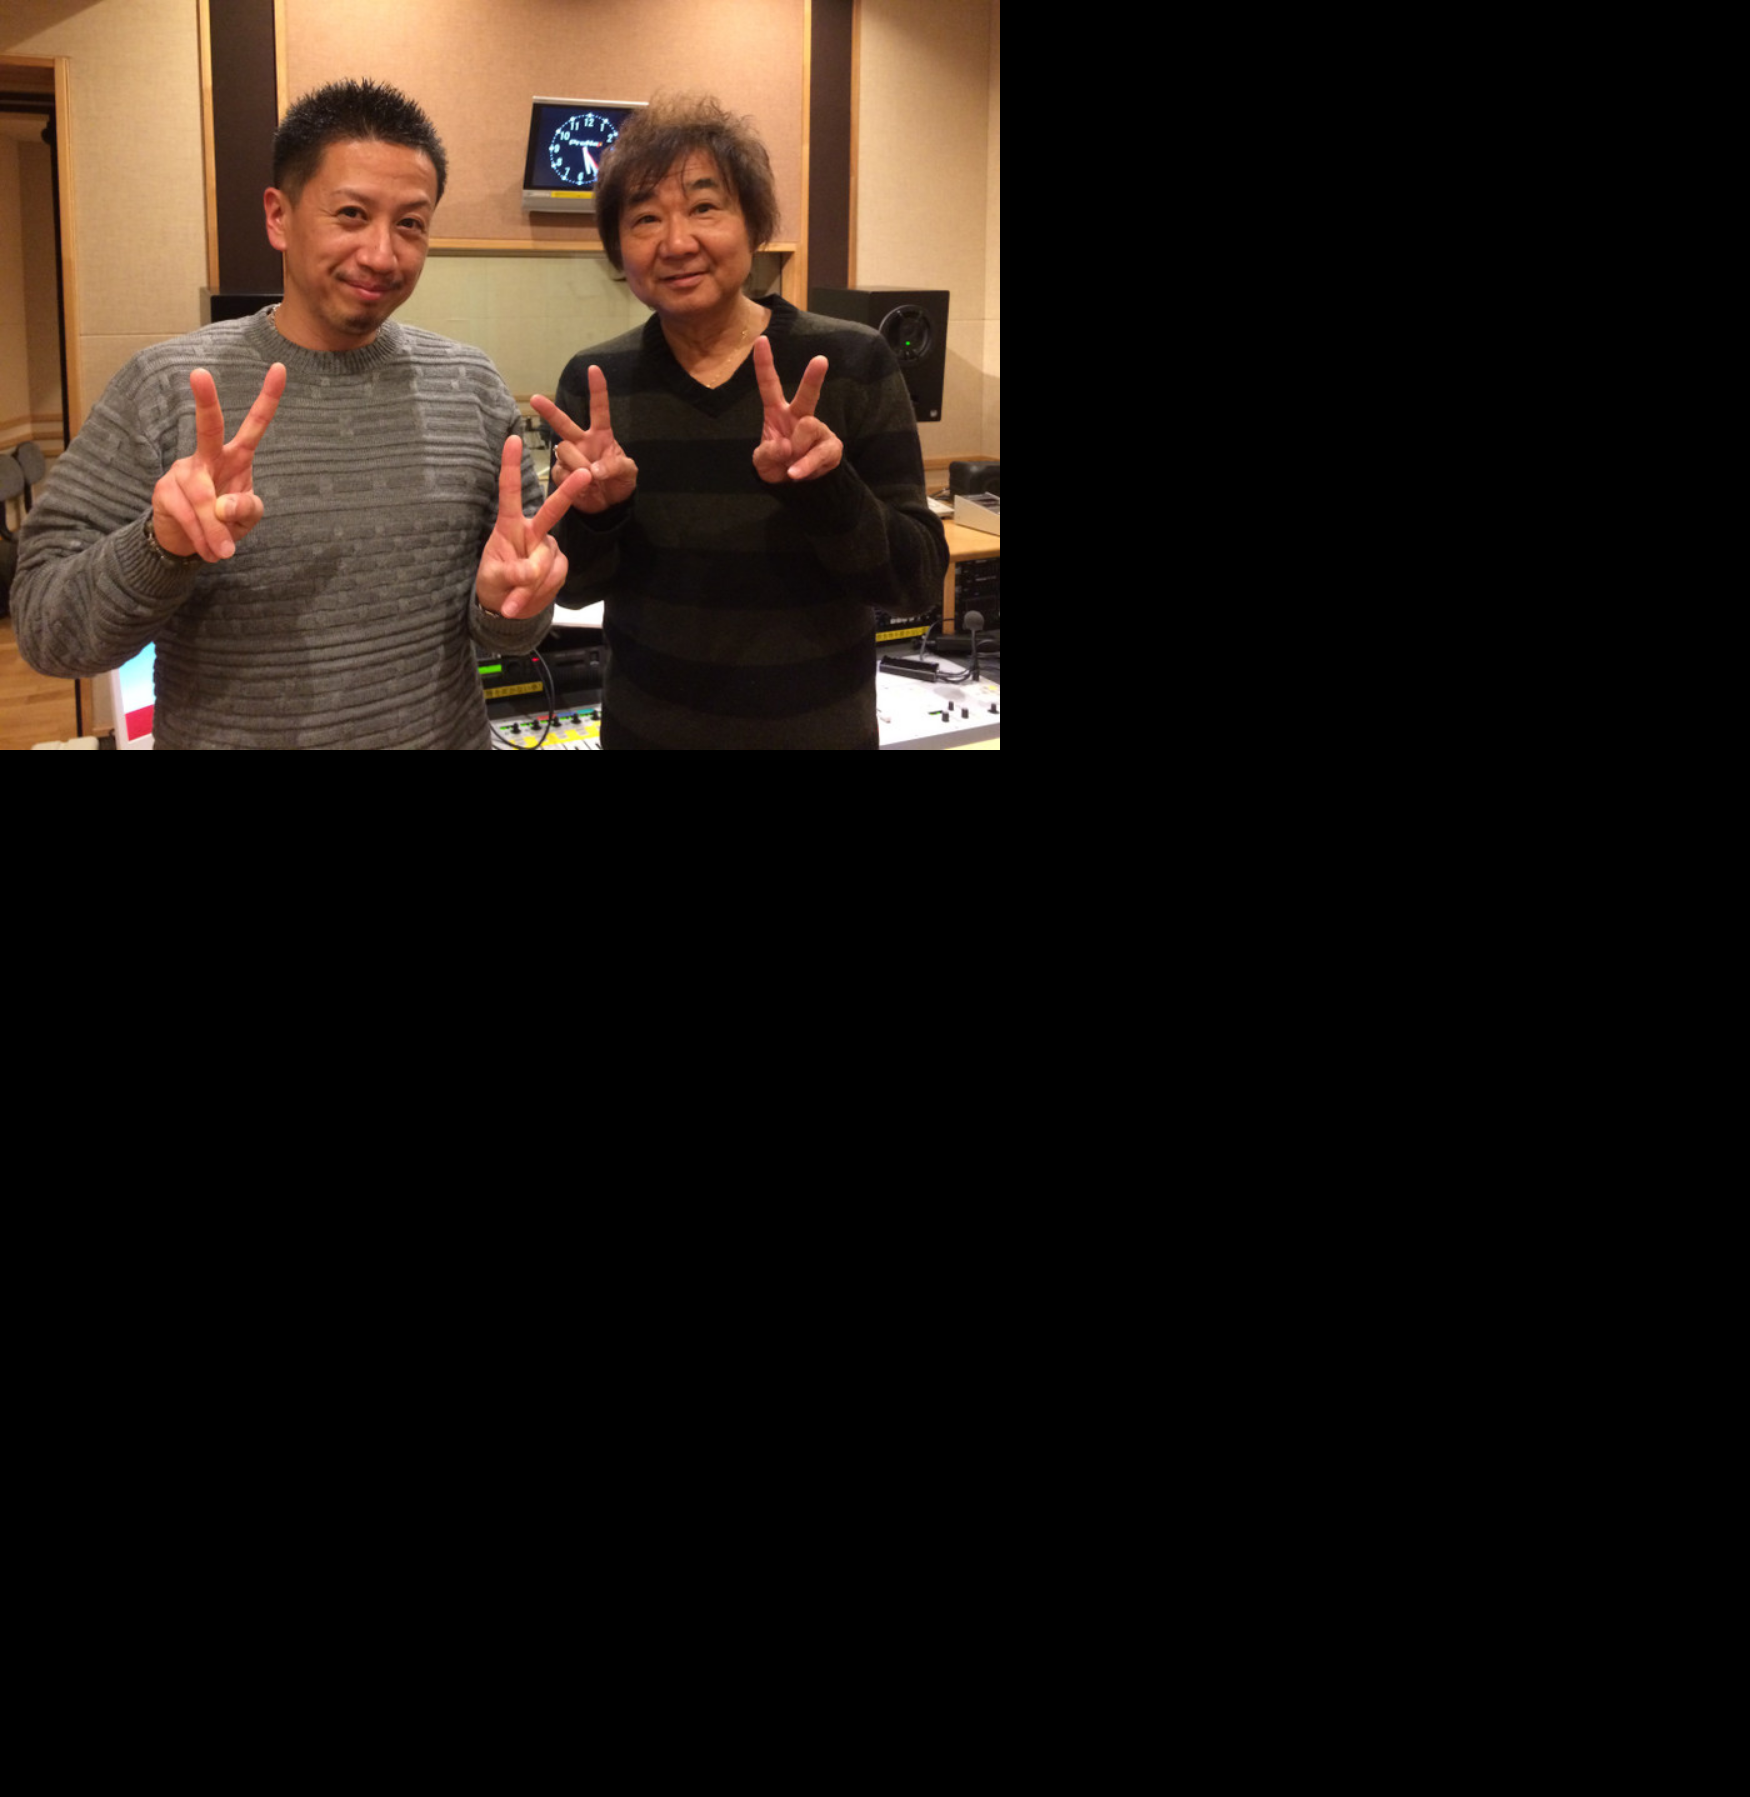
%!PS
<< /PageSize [1750 1797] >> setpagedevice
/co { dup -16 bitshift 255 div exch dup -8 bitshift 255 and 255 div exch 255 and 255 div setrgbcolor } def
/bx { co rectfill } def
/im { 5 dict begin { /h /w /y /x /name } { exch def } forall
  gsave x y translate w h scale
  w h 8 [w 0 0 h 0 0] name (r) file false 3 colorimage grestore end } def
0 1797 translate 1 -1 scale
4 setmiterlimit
0 0 1750 1797 16#000000 bx
(media/1.raw) 0 0 1000 750 im
showpage
